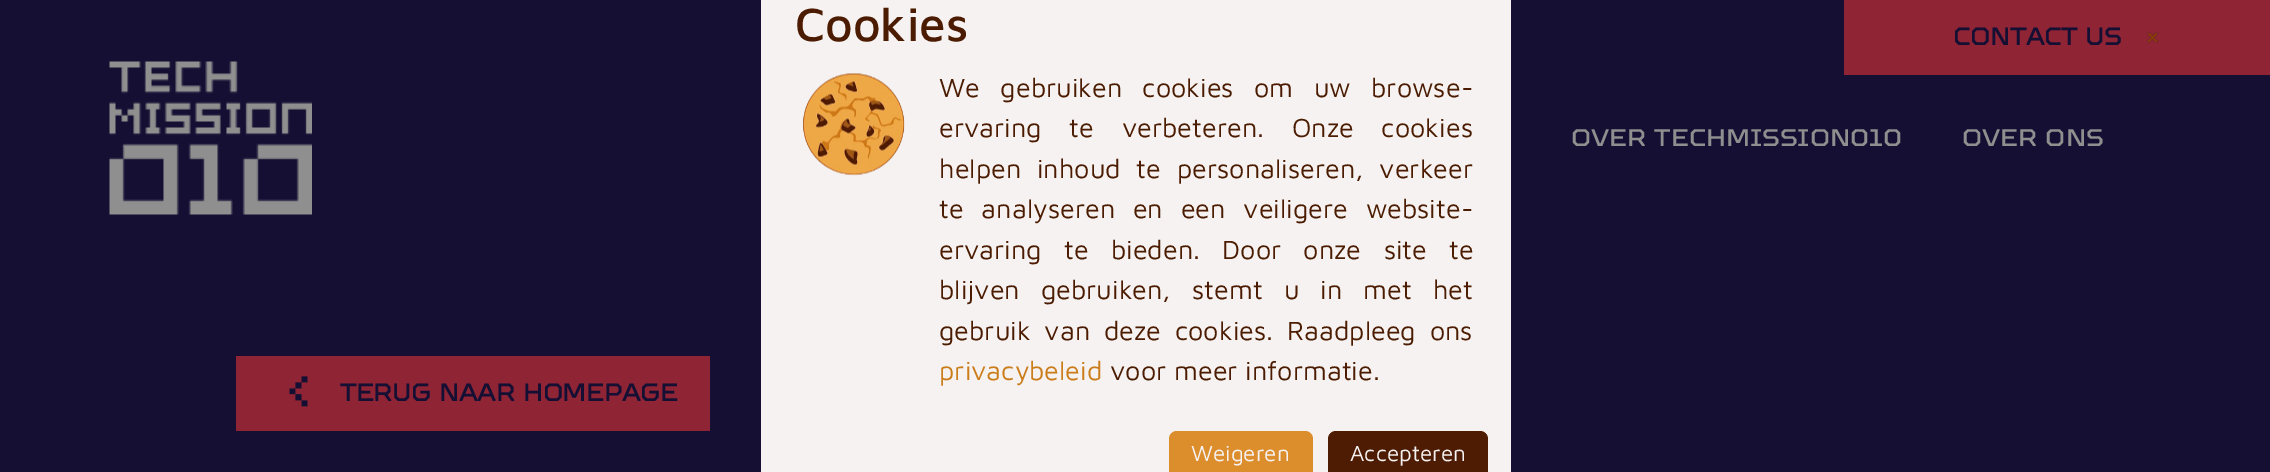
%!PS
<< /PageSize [2270 472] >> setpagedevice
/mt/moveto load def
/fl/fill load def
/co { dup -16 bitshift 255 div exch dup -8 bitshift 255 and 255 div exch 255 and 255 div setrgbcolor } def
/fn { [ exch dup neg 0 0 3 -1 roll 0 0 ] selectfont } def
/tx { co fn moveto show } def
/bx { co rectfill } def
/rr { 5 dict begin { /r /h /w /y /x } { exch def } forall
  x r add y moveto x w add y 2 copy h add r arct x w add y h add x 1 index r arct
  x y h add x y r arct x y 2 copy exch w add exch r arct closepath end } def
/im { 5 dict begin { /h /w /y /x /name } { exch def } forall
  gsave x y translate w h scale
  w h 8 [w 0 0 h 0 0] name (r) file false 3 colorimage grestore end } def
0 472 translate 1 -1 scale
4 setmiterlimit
0 0 2270 472 16#150F34 bx
761 0 750 472 16#F6F2F2 bx
(media/1.raw) 802 73 103 103 im
16#DC8D2C co
1169 431 144 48 8 rr fl
16#4E1C03 co
1328 431 160 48 8 rr fl
1844 0 426 75 16#8E2434 bx
(media/2.raw) 2147 32 12 11 im
(media/3.raw) 109 61 203 154 im
236 356 474 75 16#8E2434 bx
(media/4.raw) 289 376 19 31 im
(Cookies) 795 41 /MavenPro-Medium 48 16#4B1C01 tx
/MavenPro-Regular 27 fn
939 97 mt 12.5 0 32 (We gebruiken cookies om uw browse-) widthshow
939 137 mt 20 0 32 (ervaring te verbeteren. Onze cookies) widthshow
939 178 mt 8 0 32 (helpen inhoud te personaliseren, verkeer) widthshow
939 218 mt 10 0 32 (te analyseren en een veiligere website-) widthshow
939 259 mt 14.5 0 32 (ervaring te bieden. Door onze site te) widthshow
939 299 mt 13.25 0 32 (blijven gebruiken, stemt u in met het) widthshow
939 340 mt 6 0 32 (gebruik van deze cookies. Raadpleeg ons) widthshow
(privacybeleid) 939 380 /MavenPro-Regular 27 16#CC7D1B tx
(voor meer informatie.) 1110 380 /MavenPro-Regular 27 16#4B1C01 tx
(Weigeren) 1191 461 /MavenPro-Regular 22.5 16#F6F2F2 tx
(Accepteren) 1350 461 /MavenPro-Regular 22.5 16#F6F2F2 tx
(CONTACT US) 1953 45 /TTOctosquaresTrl-Bold 24 16#150F34 tx
(OVER TECHMISSION010) 1571 146 /TTOctosquaresTrl-Medium 24 16#8F8F8F tx
(OVER ONS) 1962 146 /TTOctosquaresTrl-Medium 24 16#8F8F8F tx
(TERUG NAAR HOMEPAGE) 340 401 /TTOctosquaresTrl-Bold 24 16#150F34 tx
showpage
